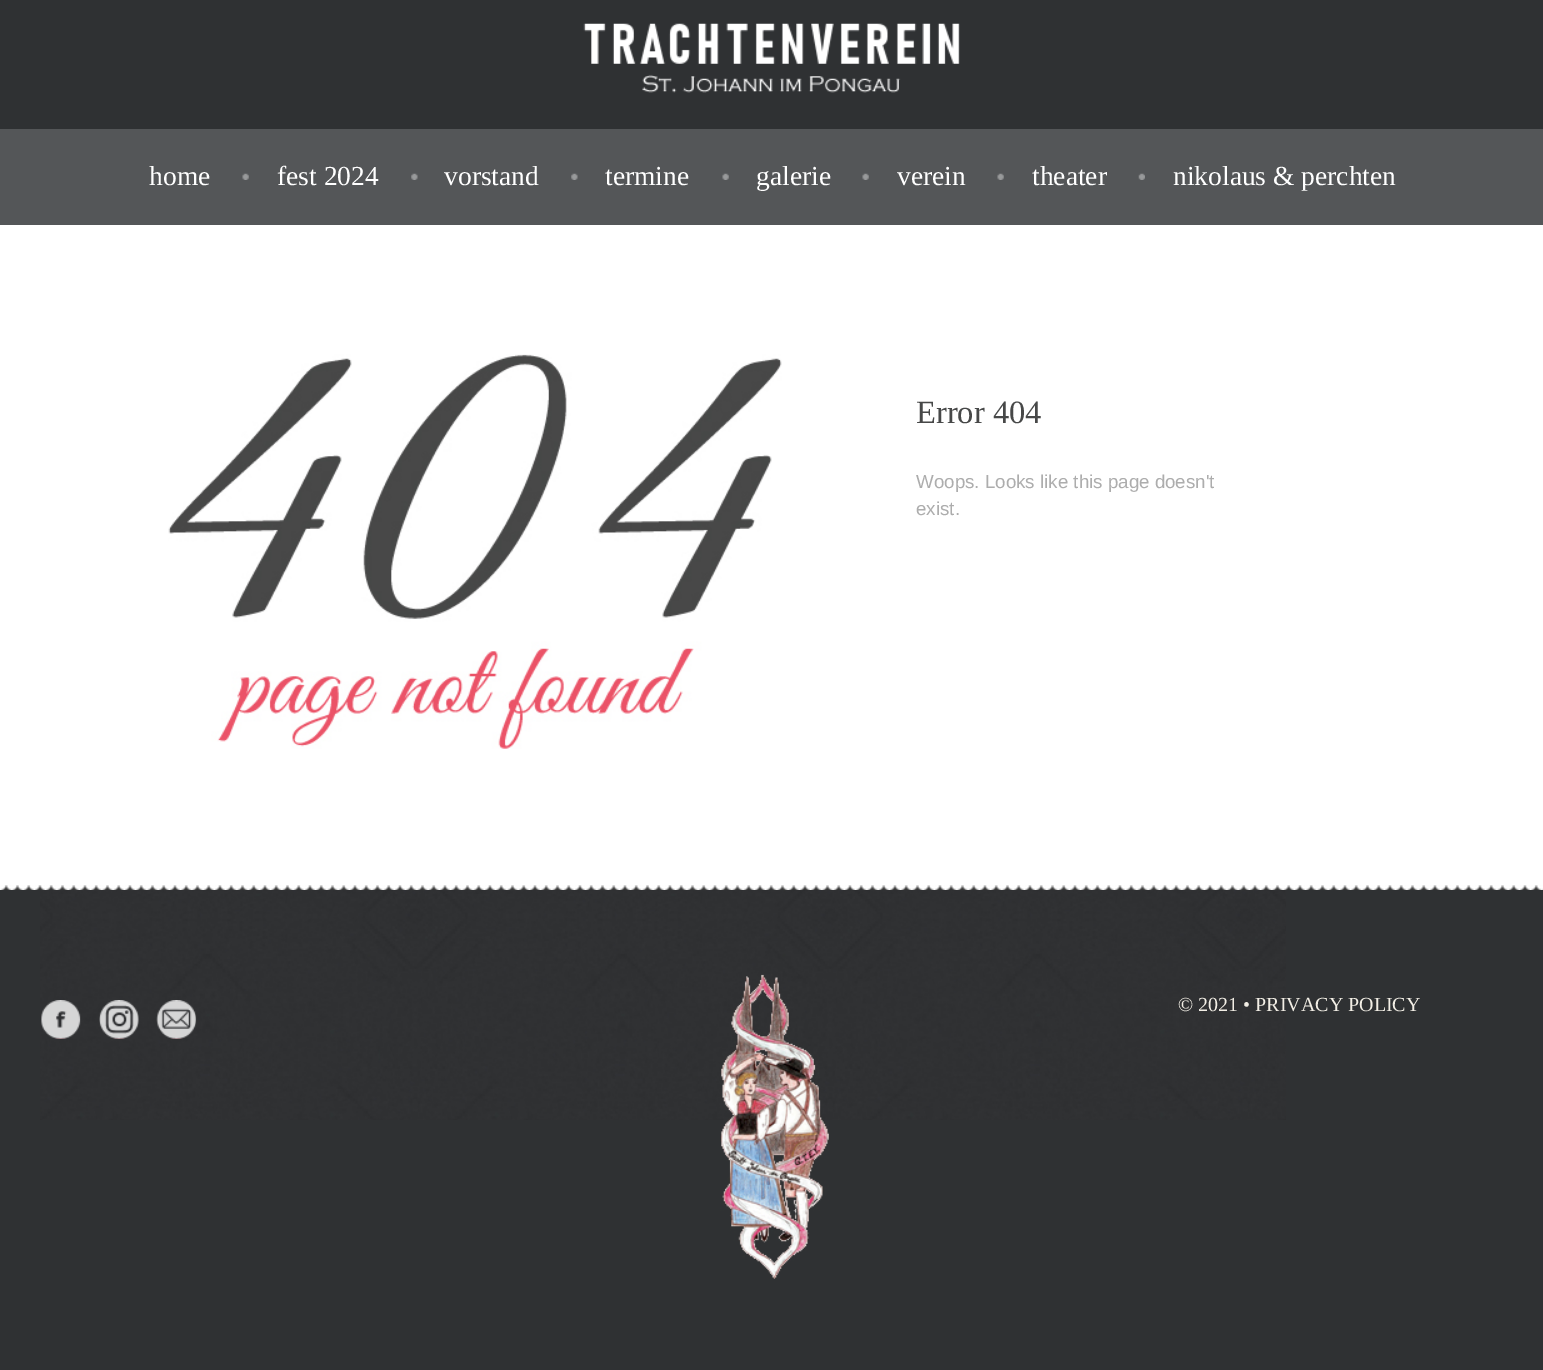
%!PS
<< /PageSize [1543 1370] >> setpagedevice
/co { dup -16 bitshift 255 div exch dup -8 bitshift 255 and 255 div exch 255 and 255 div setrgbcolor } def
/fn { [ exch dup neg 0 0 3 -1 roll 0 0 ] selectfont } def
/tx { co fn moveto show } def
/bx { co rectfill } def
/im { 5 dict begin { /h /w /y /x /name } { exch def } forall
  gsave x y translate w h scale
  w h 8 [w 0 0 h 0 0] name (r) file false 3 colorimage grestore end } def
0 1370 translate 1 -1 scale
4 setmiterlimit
0 0 1543 1370 16#2F3133 bx
(media/1.raw) 40 890 1246 230 im
(media/2.raw) 583 23 377 70 im
0 129 1543 96 16#545658 bx
(media/3.raw) 242 173 7 7 im
(media/4.raw) 411 173 7 7 im
(media/4.raw) 571 173 7 7 im
(media/3.raw) 722 173 7 7 im
(media/3.raw) 862 173 7 7 im
(media/5.raw) 997 173 7 7 im
(media/6.raw) 1138 173 7 7 im
0 225 1543 660 16#FFFFFF bx
(media/7.raw) 168 354 614 395 im
(media/8.raw) 0 885 1543 5 im
(media/9.raw) 41 1000 40 39 im
(media/10.raw) 99 1000 40 39 im
(media/11.raw) 156 1000 41 39 im
(media/12.raw) 720 974 109 305 im
(home) 149 185 /LiberationSerif-Regular 27.5 16#FFFFFF tx
(fest 2024) 277 185 /LiberationSerif-Regular 27.5 16#FFFFFF tx
(vorstand) 444 185 /LiberationSerif-Regular 27.5 16#FFFFFF tx
(termine) 605 185 /LiberationSerif-Regular 27.5 16#FFFFFF tx
(galerie) 756 185 /LiberationSerif-Regular 27.5 16#FFFFFF tx
(verein) 897 185 /LiberationSerif-Regular 27.5 16#FFFFFF tx
(theater) 1032 185 /LiberationSerif-Regular 27.5 16#FFFFFF tx
(nikolaus & perchten) 1173 185 /LiberationSerif-Regular 27.5 16#FFFFFF tx
(Error 404) 916 423 /LiberationSerif-Regular 32.5 16#474848 tx
(Woops. Looks like this page doesn't) 916 488 /LiberationSans-Regular 18.75 16#ADADAD tx
(exist.) 916 515 /LiberationSans-Regular 18.75 16#ADADAD tx
(© 2021 • PRIVACY POLICY) 1178 1011 /LiberationSerif-Regular 20 16#F2EEE5 tx
showpage
